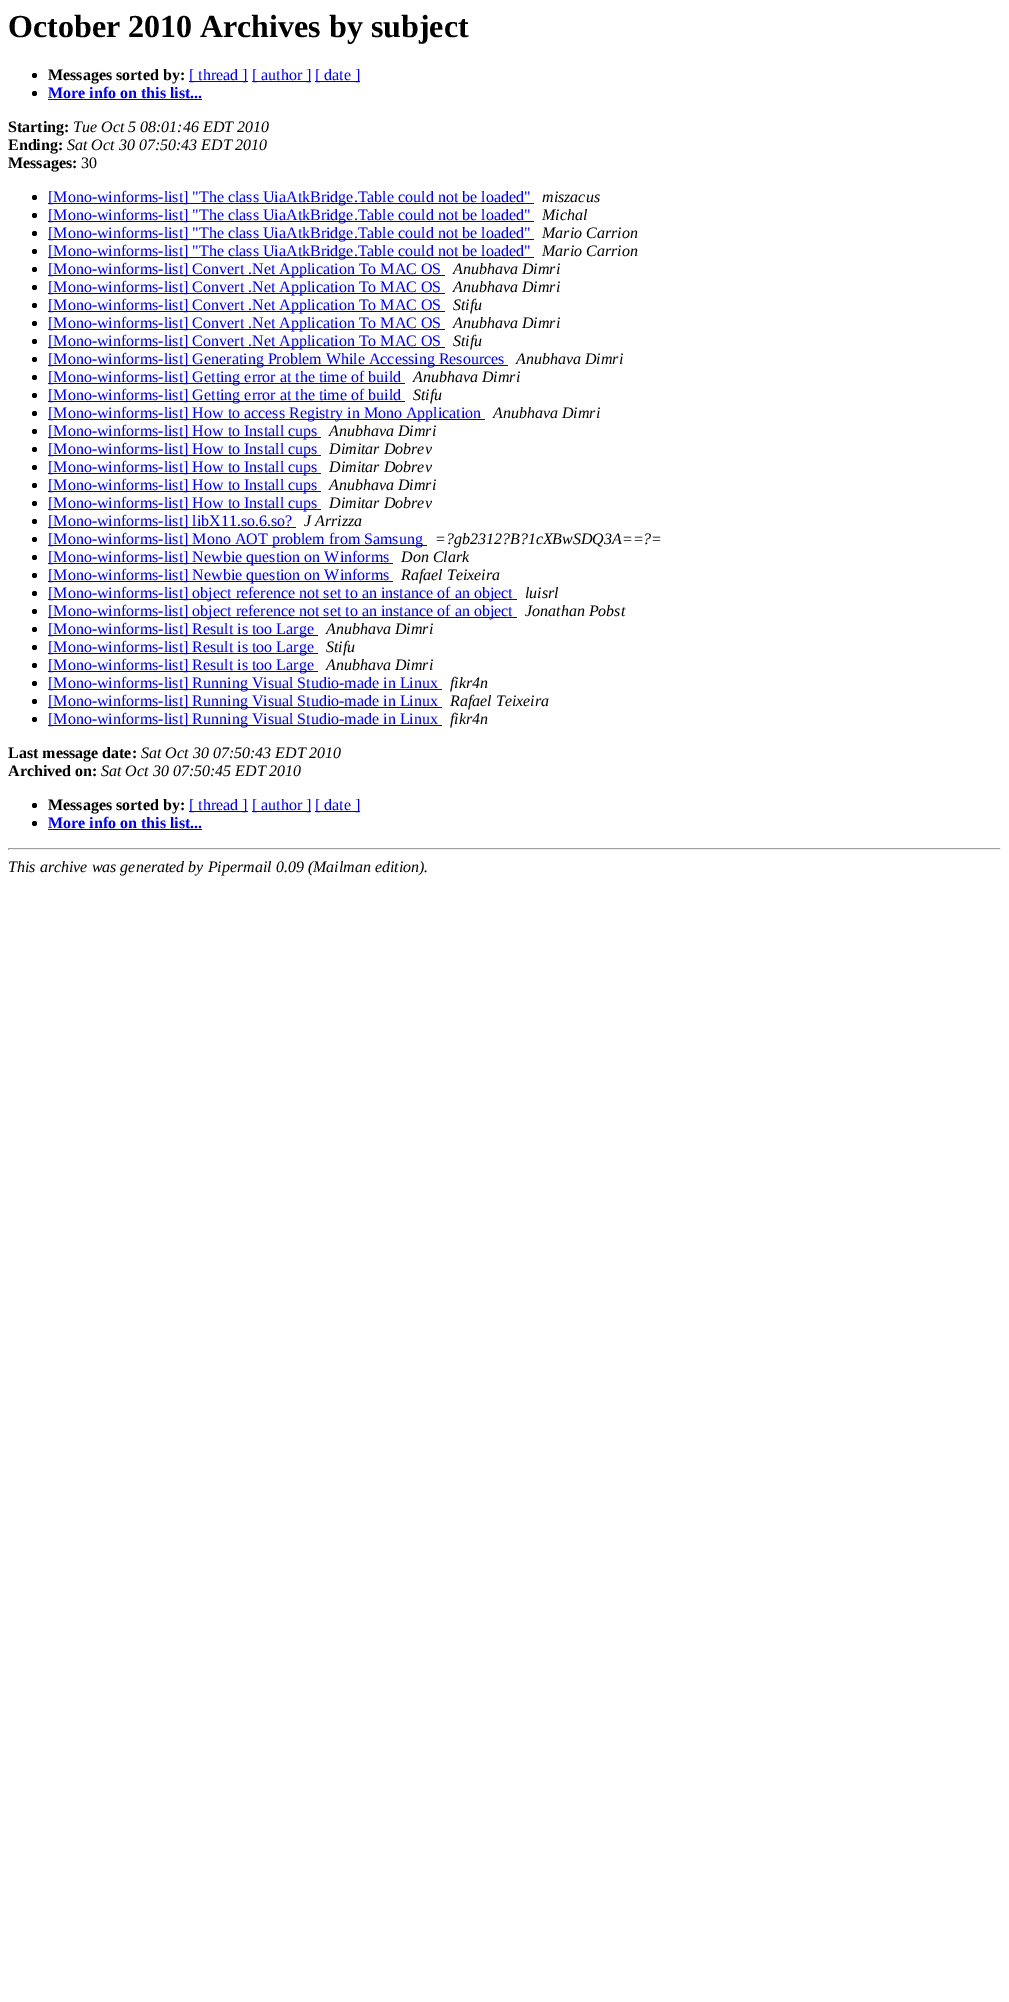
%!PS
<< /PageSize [1009 2002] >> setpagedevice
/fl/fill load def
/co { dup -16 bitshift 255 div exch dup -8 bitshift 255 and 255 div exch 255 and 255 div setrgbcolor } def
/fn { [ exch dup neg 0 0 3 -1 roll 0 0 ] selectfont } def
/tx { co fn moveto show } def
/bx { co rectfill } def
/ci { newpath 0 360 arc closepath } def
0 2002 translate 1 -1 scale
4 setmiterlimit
0 0 1009 2002 16#FFFFFF bx
16#000000 co
34.5 75.5 2.5 ci fl
189 81 59 1 16#0000EE bx
252 81 59 1 16#0000EE bx
315 81 45 1 16#0000EE bx
16#000000 co
34.5 93.5 2.5 ci fl
48 99 154 1 16#0000EE bx
16#000000 co
34.5 197.5 2.5 ci fl
48 203 486 1 16#0000EE bx
16#000000 co
34.5 215.5 2.5 ci fl
48 221 486 1 16#0000EE bx
16#000000 co
34.5 233.5 2.5 ci fl
48 239 486 1 16#0000EE bx
16#000000 co
34.5 251.5 2.5 ci fl
48 257 486 1 16#0000EE bx
16#000000 co
34.5 269.5 2.5 ci fl
48 275 397 1 16#0000EE bx
16#000000 co
34.5 287.5 2.5 ci fl
48 293 397 1 16#0000EE bx
16#000000 co
34.5 305.5 2.5 ci fl
48 311 397 1 16#0000EE bx
16#000000 co
34.5 323.5 2.5 ci fl
48 329 397 1 16#0000EE bx
16#000000 co
34.5 341.5 2.5 ci fl
48 347 397 1 16#0000EE bx
16#000000 co
34.5 359.5 2.5 ci fl
48 365 460 1 16#0000EE bx
16#000000 co
34.5 377.5 2.5 ci fl
48 383 357 1 16#0000EE bx
16#000000 co
34.5 395.5 2.5 ci fl
48 401 357 1 16#0000EE bx
16#000000 co
34.5 413.5 2.5 ci fl
48 419 437 1 16#0000EE bx
16#000000 co
34.5 431.5 2.5 ci fl
48 437 273 1 16#0000EE bx
16#000000 co
34.5 449.5 2.5 ci fl
48 455 273 1 16#0000EE bx
16#000000 co
34.5 467.5 2.5 ci fl
48 473 273 1 16#0000EE bx
16#000000 co
34.5 485.5 2.5 ci fl
48 491 273 1 16#0000EE bx
16#000000 co
34.5 503.5 2.5 ci fl
48 509 273 1 16#0000EE bx
16#000000 co
34.5 521.5 2.5 ci fl
48 527 248 1 16#0000EE bx
16#000000 co
34.5 539.5 2.5 ci fl
48 545 379 1 16#0000EE bx
16#000000 co
34.5 557.5 2.5 ci fl
48 563 345 1 16#0000EE bx
16#000000 co
34.5 575.5 2.5 ci fl
48 581 345 1 16#0000EE bx
16#000000 co
34.5 593.5 2.5 ci fl
48 599 469 1 16#0000EE bx
16#000000 co
34.5 611.5 2.5 ci fl
48 617 469 1 16#0000EE bx
16#000000 co
34.5 629.5 2.5 ci fl
48 635 270 1 16#0000EE bx
16#000000 co
34.5 647.5 2.5 ci fl
48 653 270 1 16#0000EE bx
16#000000 co
34.5 665.5 2.5 ci fl
48 671 270 1 16#0000EE bx
16#000000 co
34.5 683.5 2.5 ci fl
48 689 394 1 16#0000EE bx
16#000000 co
34.5 701.5 2.5 ci fl
48 707 394 1 16#0000EE bx
16#000000 co
34.5 719.5 2.5 ci fl
48 725 394 1 16#0000EE bx
16#000000 co
34.5 805.5 2.5 ci fl
189 811 59 1 16#0000EE bx
252 811 59 1 16#0000EE bx
315 811 45 1 16#0000EE bx
16#000000 co
34.5 823.5 2.5 ci fl
48 829 154 1 16#0000EE bx
8 848 993 1 16#9F9F9F bx
1000 848 1 2 16#EEEEEE bx
8 849 993 1 16#EEEEEE bx
8 848 1 2 16#9F9F9F bx
(October 2010 Archives by subject) 8 37 /LiberationSerif-Bold 32 16#000000 tx
(Messages sorted by:) 48 80 /LiberationSerif-Bold 16 16#000000 tx
([ thread ]) 189 80 /LiberationSerif-Regular 16 16#0000EE tx
([ author ]) 252 80 /LiberationSerif-Regular 16 16#0000EE tx
([ date ]) 315 80 /LiberationSerif-Regular 16 16#0000EE tx
(More info on this list...) 48 98 /LiberationSerif-Bold 16 16#0000EE tx
(Starting:) 8 132 /LiberationSerif-Bold 16 16#000000 tx
(Tue Oct 5 08:01:46 EDT 2010) 73 132 /LiberationSerif-Italic 16 16#000000 tx
(Ending:) 8 150 /LiberationSerif-Bold 16 16#000000 tx
(Sat Oct 30 07:50:43 EDT 2010) 67 150 /LiberationSerif-Italic 16 16#000000 tx
(Messages:) 8 168 /LiberationSerif-Bold 16 16#000000 tx
(30) 81 168 /LiberationSerif-Regular 16 16#000000 tx
([Mono-winforms-list] "The class UiaAtkBridge.Table could not be loaded") 48 202 /LiberationSerif-Regular 16 16#0000EE tx
(miszacus) 542 202 /LiberationSerif-Italic 16 16#000000 tx
([Mono-winforms-list] "The class UiaAtkBridge.Table could not be loaded") 48 220 /LiberationSerif-Regular 16 16#0000EE tx
(Michal) 542 220 /LiberationSerif-Italic 16 16#000000 tx
([Mono-winforms-list] "The class UiaAtkBridge.Table could not be loaded") 48 238 /LiberationSerif-Regular 16 16#0000EE tx
(Mario Carrion) 542 238 /LiberationSerif-Italic 16 16#000000 tx
([Mono-winforms-list] "The class UiaAtkBridge.Table could not be loaded") 48 256 /LiberationSerif-Regular 16 16#0000EE tx
(Mario Carrion) 542 256 /LiberationSerif-Italic 16 16#000000 tx
([Mono-winforms-list] Convert .Net Application To MAC OS) 48 274 /LiberationSerif-Regular 16 16#0000EE tx
(Anubhava Dimri) 453 274 /LiberationSerif-Italic 16 16#000000 tx
([Mono-winforms-list] Convert .Net Application To MAC OS) 48 292 /LiberationSerif-Regular 16 16#0000EE tx
(Anubhava Dimri) 453 292 /LiberationSerif-Italic 16 16#000000 tx
([Mono-winforms-list] Convert .Net Application To MAC OS) 48 310 /LiberationSerif-Regular 16 16#0000EE tx
(Stifu) 453 310 /LiberationSerif-Italic 16 16#000000 tx
([Mono-winforms-list] Convert .Net Application To MAC OS) 48 328 /LiberationSerif-Regular 16 16#0000EE tx
(Anubhava Dimri) 453 328 /LiberationSerif-Italic 16 16#000000 tx
([Mono-winforms-list] Convert .Net Application To MAC OS) 48 346 /LiberationSerif-Regular 16 16#0000EE tx
(Stifu) 453 346 /LiberationSerif-Italic 16 16#000000 tx
([Mono-winforms-list] Generating Problem While Accessing Resources) 48 364 /LiberationSerif-Regular 16 16#0000EE tx
(Anubhava Dimri) 516 364 /LiberationSerif-Italic 16 16#000000 tx
([Mono-winforms-list] Getting error at the time of build) 48 382 /LiberationSerif-Regular 16 16#0000EE tx
(Anubhava Dimri) 413 382 /LiberationSerif-Italic 16 16#000000 tx
([Mono-winforms-list] Getting error at the time of build) 48 400 /LiberationSerif-Regular 16 16#0000EE tx
(Stifu) 413 400 /LiberationSerif-Italic 16 16#000000 tx
([Mono-winforms-list] How to access Registry in Mono Application) 48 418 /LiberationSerif-Regular 16 16#0000EE tx
(Anubhava Dimri) 493 418 /LiberationSerif-Italic 16 16#000000 tx
([Mono-winforms-list] How to Install cups) 48 436 /LiberationSerif-Regular 16 16#0000EE tx
(Anubhava Dimri) 329 436 /LiberationSerif-Italic 16 16#000000 tx
([Mono-winforms-list] How to Install cups) 48 454 /LiberationSerif-Regular 16 16#0000EE tx
(Dimitar Dobrev) 329 454 /LiberationSerif-Italic 16 16#000000 tx
([Mono-winforms-list] How to Install cups) 48 472 /LiberationSerif-Regular 16 16#0000EE tx
(Dimitar Dobrev) 329 472 /LiberationSerif-Italic 16 16#000000 tx
([Mono-winforms-list] How to Install cups) 48 490 /LiberationSerif-Regular 16 16#0000EE tx
(Anubhava Dimri) 329 490 /LiberationSerif-Italic 16 16#000000 tx
([Mono-winforms-list] How to Install cups) 48 508 /LiberationSerif-Regular 16 16#0000EE tx
(Dimitar Dobrev) 329 508 /LiberationSerif-Italic 16 16#000000 tx
([Mono-winforms-list] libX11.so.6.so?) 48 526 /LiberationSerif-Regular 16 16#0000EE tx
(J Arrizza) 304 526 /LiberationSerif-Italic 16 16#000000 tx
([Mono-winforms-list] Mono AOT problem from Samsung) 48 544 /LiberationSerif-Regular 16 16#0000EE tx
(=?gb2312?B?1cXBwSDQ3A==?=) 435 544 /LiberationSerif-Italic 16 16#000000 tx
([Mono-winforms-list] Newbie question on Winforms) 48 562 /LiberationSerif-Regular 16 16#0000EE tx
(Don Clark) 401 562 /LiberationSerif-Italic 16 16#000000 tx
([Mono-winforms-list] Newbie question on Winforms) 48 580 /LiberationSerif-Regular 16 16#0000EE tx
(Rafael Teixeira) 401 580 /LiberationSerif-Italic 16 16#000000 tx
([Mono-winforms-list] object reference not set to an instance of an object) 48 598 /LiberationSerif-Regular 16 16#0000EE tx
(luisrl) 525 598 /LiberationSerif-Italic 16 16#000000 tx
([Mono-winforms-list] object reference not set to an instance of an object) 48 616 /LiberationSerif-Regular 16 16#0000EE tx
(Jonathan Pobst) 525 616 /LiberationSerif-Italic 16 16#000000 tx
([Mono-winforms-list] Result is too Large) 48 634 /LiberationSerif-Regular 16 16#0000EE tx
(Anubhava Dimri) 326 634 /LiberationSerif-Italic 16 16#000000 tx
([Mono-winforms-list] Result is too Large) 48 652 /LiberationSerif-Regular 16 16#0000EE tx
(Stifu) 326 652 /LiberationSerif-Italic 16 16#000000 tx
([Mono-winforms-list] Result is too Large) 48 670 /LiberationSerif-Regular 16 16#0000EE tx
(Anubhava Dimri) 326 670 /LiberationSerif-Italic 16 16#000000 tx
([Mono-winforms-list] Running Visual Studio-made in Linux) 48 688 /LiberationSerif-Regular 16 16#0000EE tx
(fikr4n) 450 688 /LiberationSerif-Italic 16 16#000000 tx
([Mono-winforms-list] Running Visual Studio-made in Linux) 48 706 /LiberationSerif-Regular 16 16#0000EE tx
(Rafael Teixeira) 450 706 /LiberationSerif-Italic 16 16#000000 tx
([Mono-winforms-list] Running Visual Studio-made in Linux) 48 724 /LiberationSerif-Regular 16 16#0000EE tx
(fikr4n) 450 724 /LiberationSerif-Italic 16 16#000000 tx
(Last message date:) 8 758 /LiberationSerif-Bold 16 16#000000 tx
(Sat Oct 30 07:50:43 EDT 2010) 141 758 /LiberationSerif-Italic 16 16#000000 tx
(Archived on:) 8 776 /LiberationSerif-Bold 16 16#000000 tx
(Sat Oct 30 07:50:45 EDT 2010) 101 776 /LiberationSerif-Italic 16 16#000000 tx
(Messages sorted by:) 48 810 /LiberationSerif-Bold 16 16#000000 tx
([ thread ]) 189 810 /LiberationSerif-Regular 16 16#0000EE tx
([ author ]) 252 810 /LiberationSerif-Regular 16 16#0000EE tx
([ date ]) 315 810 /LiberationSerif-Regular 16 16#0000EE tx
(More info on this list...) 48 828 /LiberationSerif-Bold 16 16#0000EE tx
(This archive was generated by Pipermail 0.09 \(Mailman edition\).) 8 872 /LiberationSerif-Italic 16 16#000000 tx
showpage
